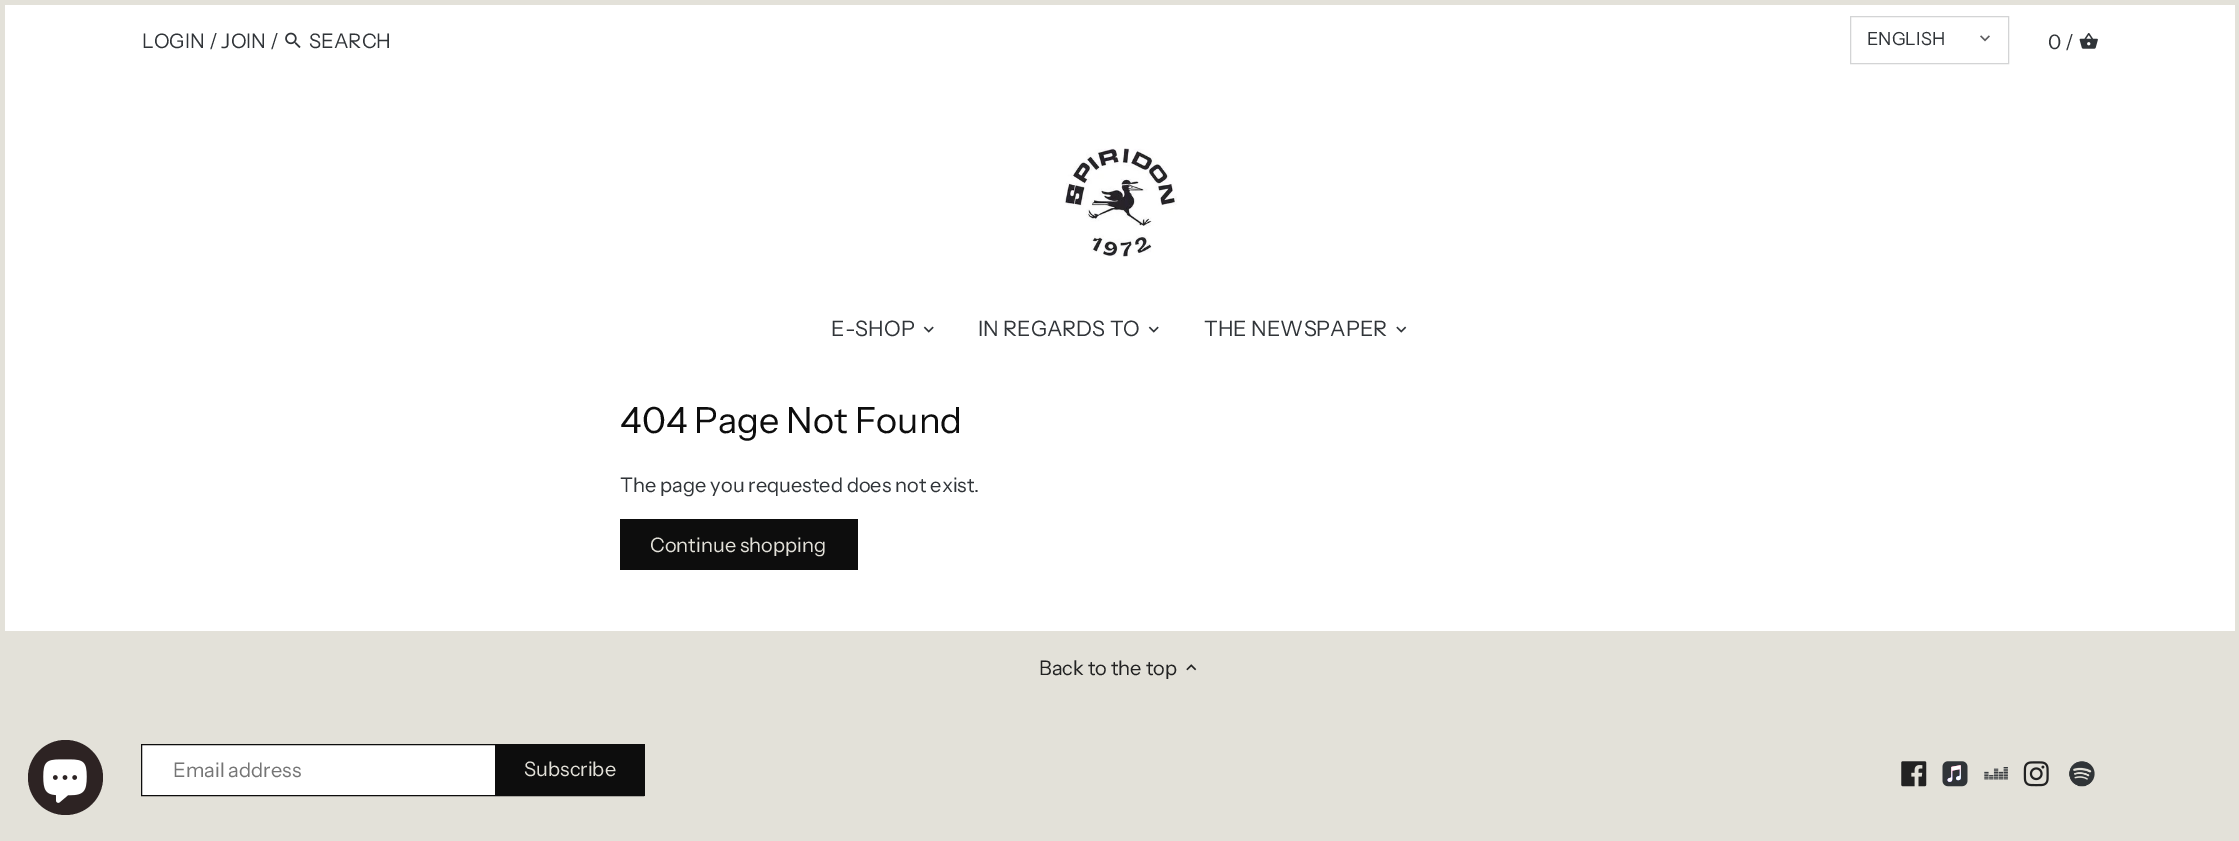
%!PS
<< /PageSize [2239 841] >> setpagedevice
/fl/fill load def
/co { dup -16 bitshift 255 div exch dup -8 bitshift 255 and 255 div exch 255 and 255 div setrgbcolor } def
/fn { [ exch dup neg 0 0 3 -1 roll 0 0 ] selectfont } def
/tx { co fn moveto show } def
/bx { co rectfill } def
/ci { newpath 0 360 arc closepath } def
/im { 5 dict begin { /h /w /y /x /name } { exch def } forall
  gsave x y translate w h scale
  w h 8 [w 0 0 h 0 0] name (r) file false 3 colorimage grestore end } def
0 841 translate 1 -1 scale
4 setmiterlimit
0 0 2239 841 16#E3E1D9 bx
16#2D2323 co
65.5 777.5 37.5 ci fl
(media/1.raw) 43 759 44 44 im
5 5 2230 626 16#FFFFFF bx
(media/2.raw) 285 32 16 16 im
16#D3D4D5 co
1850.5 16.5 158 47 rectstroke
(media/3.raw) 1980 35 10 7 im
(media/4.raw) 2079 33 19 16 im
(media/5.raw) 1064 148 113 109 im
(media/6.raw) 923 326 11 7 im
(media/6.raw) 1148 326 11 7 im
(media/7.raw) 1396 326 11 7 im
620 519 238 51 16#0D0D0D bx
(media/8.raw) 1186 664 11 7 im
142 745 353 50 16#FFFFFF bx
16#0D0D0D co
141.5 744.5 502 51 rectstroke
495 744 150 52 16#0D0D0D bx
(media/9.raw) 1901 761 26 26 im
(media/10.raw) 1942 761 26 26 im
(media/11.raw) 1984 767 24 13 im
(media/12.raw) 2023 761 26 26 im
(media/13.raw) 2069 761 26 26 im
(LOGIN / JOIN /) 142 48 /InstrumentSans-Regular 20 16#303438 tx
(SEARCH) 309 48 /InstrumentSans-Regular 20 16#303438 tx
(ENGLISH) 1867 45 /InstrumentSans-Regular 18 16#303438 tx
(0 /) 2048 49 /InstrumentSans-Regular 20 16#303438 tx
(E-SHOP) 831 336 /InstrumentSans-Regular 21.25 16#303438 tx
(IN REGARDS TO) 978 336 /InstrumentSans-Regular 21.25 16#303438 tx
(THE NEWSPAPER) 1204 336 /InstrumentSans-Regular 21.25 16#303438 tx
(404 Page Not Found) 620 433 /InstrumentSans-Regular 36 16#0D0D0D tx
(The page you requested does not exist.) 620 492 /InstrumentSans-Regular 20 16#303438 tx
(Continue shopping) 650 552 /InstrumentSans-Regular 20 16#E3E1D9 tx
(Back to the top) 1039 675 /InstrumentSans-Regular 20 16#222222 tx
(Email address) 173 777 /InstrumentSans-Regular 20 16#757575 tx
(Subscribe) 524 776 /InstrumentSans-Regular 20 16#E3E1D9 tx
showpage
